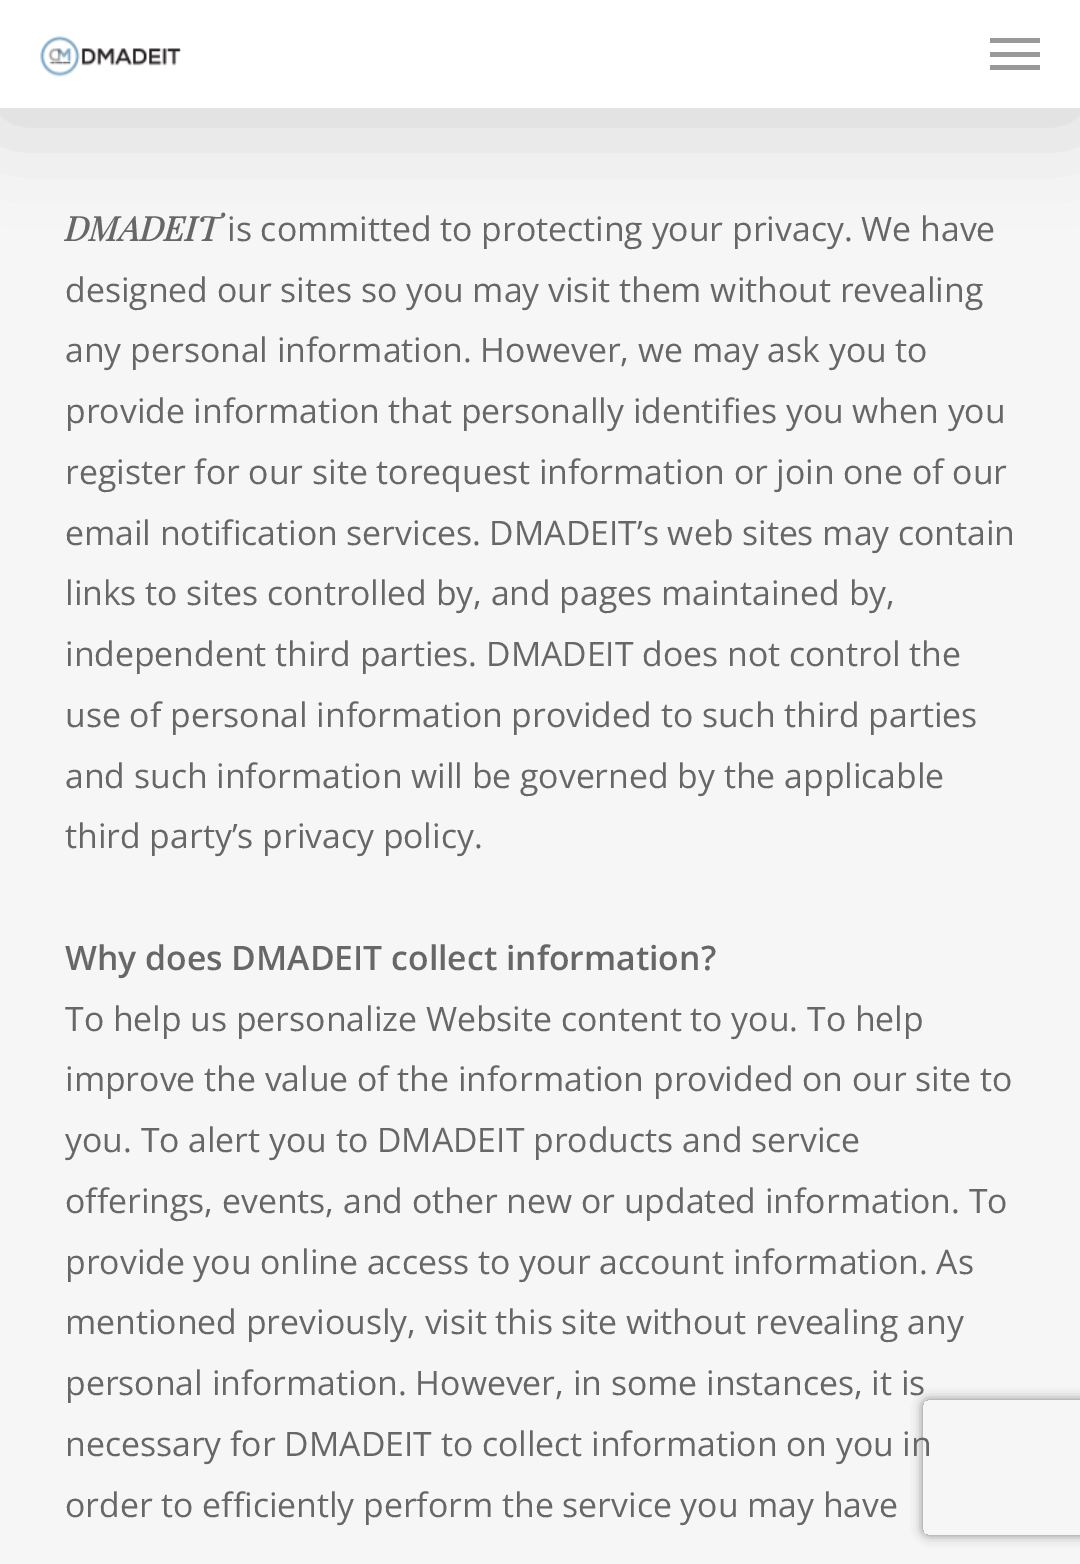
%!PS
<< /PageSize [1080 1564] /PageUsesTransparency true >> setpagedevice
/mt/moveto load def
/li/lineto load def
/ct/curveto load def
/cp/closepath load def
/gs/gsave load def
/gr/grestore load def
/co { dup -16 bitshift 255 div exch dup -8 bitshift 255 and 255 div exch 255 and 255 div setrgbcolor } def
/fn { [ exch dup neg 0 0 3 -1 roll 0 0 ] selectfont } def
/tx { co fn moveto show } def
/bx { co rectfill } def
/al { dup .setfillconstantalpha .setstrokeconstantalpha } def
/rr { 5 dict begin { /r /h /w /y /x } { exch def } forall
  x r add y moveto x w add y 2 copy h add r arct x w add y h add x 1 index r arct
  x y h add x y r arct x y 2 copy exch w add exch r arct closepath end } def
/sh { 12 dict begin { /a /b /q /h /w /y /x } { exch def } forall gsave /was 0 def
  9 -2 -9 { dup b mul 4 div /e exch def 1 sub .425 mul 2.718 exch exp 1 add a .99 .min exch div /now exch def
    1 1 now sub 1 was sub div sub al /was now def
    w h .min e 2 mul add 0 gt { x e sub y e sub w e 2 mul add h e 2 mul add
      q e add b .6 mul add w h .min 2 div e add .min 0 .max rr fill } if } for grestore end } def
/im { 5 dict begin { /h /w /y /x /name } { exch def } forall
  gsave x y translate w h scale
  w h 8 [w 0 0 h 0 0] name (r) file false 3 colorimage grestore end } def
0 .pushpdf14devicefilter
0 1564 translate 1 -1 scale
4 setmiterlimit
0 0 1080 1564 16#F6F6F6 bx
16#000000 co
0 7 1080 108 0 50.5 .15 sh
0 0 1080 108 16#FFFFFF bx
(media/1.raw) 40 36 141 41 im
990 38 50 5 16#999999 bx
990 65 50 5 16#999999 bx
990 52 50 5 16#999999 bx
gs
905 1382 mt 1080 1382 li 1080 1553 li 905 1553 li cp 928 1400 mt 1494 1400 li 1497 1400 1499 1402 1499 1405 ct 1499 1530 li 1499 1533 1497 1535 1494 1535 ct 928 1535 li 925 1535 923 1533 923 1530 ct 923 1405 li 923 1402 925 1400 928 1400 ct cp eoclip newpath
16#808080 co
923 1400 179 135 5 5.5 1 sh
gr
(DMADEIT) 65 241 /PlayfairDisplay-BoldItalic 33.75 16#676767 tx
(is committed to protecting your privacy. We have) 227 241 /OpenSans-Regular 33.75 16#676767 tx
(designed our sites so you may visit them without revealing) 65 302 /OpenSans-Regular 33.75 16#676767 tx
(any personal information. However, we may ask you to) 65 362 /OpenSans-Regular 33.75 16#676767 tx
(provide information that personally identifies you when you) 65 423 /OpenSans-Regular 33.75 16#676767 tx
(register for our site torequest information or join one of our) 65 484 /OpenSans-Regular 33.75 16#676767 tx
(email notification services. DMADEIT’s web sites may contain) 65 545 /OpenSans-Regular 33.75 16#676767 tx
(links to sites controlled by, and pages maintained by,) 65 605 /OpenSans-Regular 33.75 16#676767 tx
(independent third parties. DMADEIT does not control the) 65 666 /OpenSans-Regular 33.75 16#676767 tx
(use of personal information provided to such third parties) 65 727 /OpenSans-Regular 33.75 16#676767 tx
(and such information will be governed by the applicable) 65 788 /OpenSans-Regular 33.75 16#676767 tx
(third party’s privacy policy.) 65 848 /OpenSans-Regular 33.75 16#676767 tx
(Why does DMADEIT collect information?) 65 970 /OpenSans-SemiBold 33.75 16#676767 tx
(To help us personalize Website content to you. To help) 65 1031 /OpenSans-Regular 33.75 16#676767 tx
(improve the value of the information provided on our site to) 65 1091 /OpenSans-Regular 33.75 16#676767 tx
(you. To alert you to DMADEIT products and service) 65 1152 /OpenSans-Regular 33.75 16#676767 tx
(offerings, events, and other new or updated information. To) 65 1213 /OpenSans-Regular 33.75 16#676767 tx
(provide you online access to your account information. As) 65 1274 /OpenSans-Regular 33.75 16#676767 tx
(mentioned previously, visit this site without revealing any) 65 1334 /OpenSans-Regular 33.75 16#676767 tx
(personal information. However, in some instances, it is) 65 1395 /OpenSans-Regular 33.75 16#676767 tx
(necessary for DMADEIT to collect information on you in) 65 1456 /OpenSans-Regular 33.75 16#676767 tx
(order to efficiently perform the service you may have) 65 1517 /OpenSans-Regular 33.75 16#676767 tx
.poppdf14devicefilter showpage
